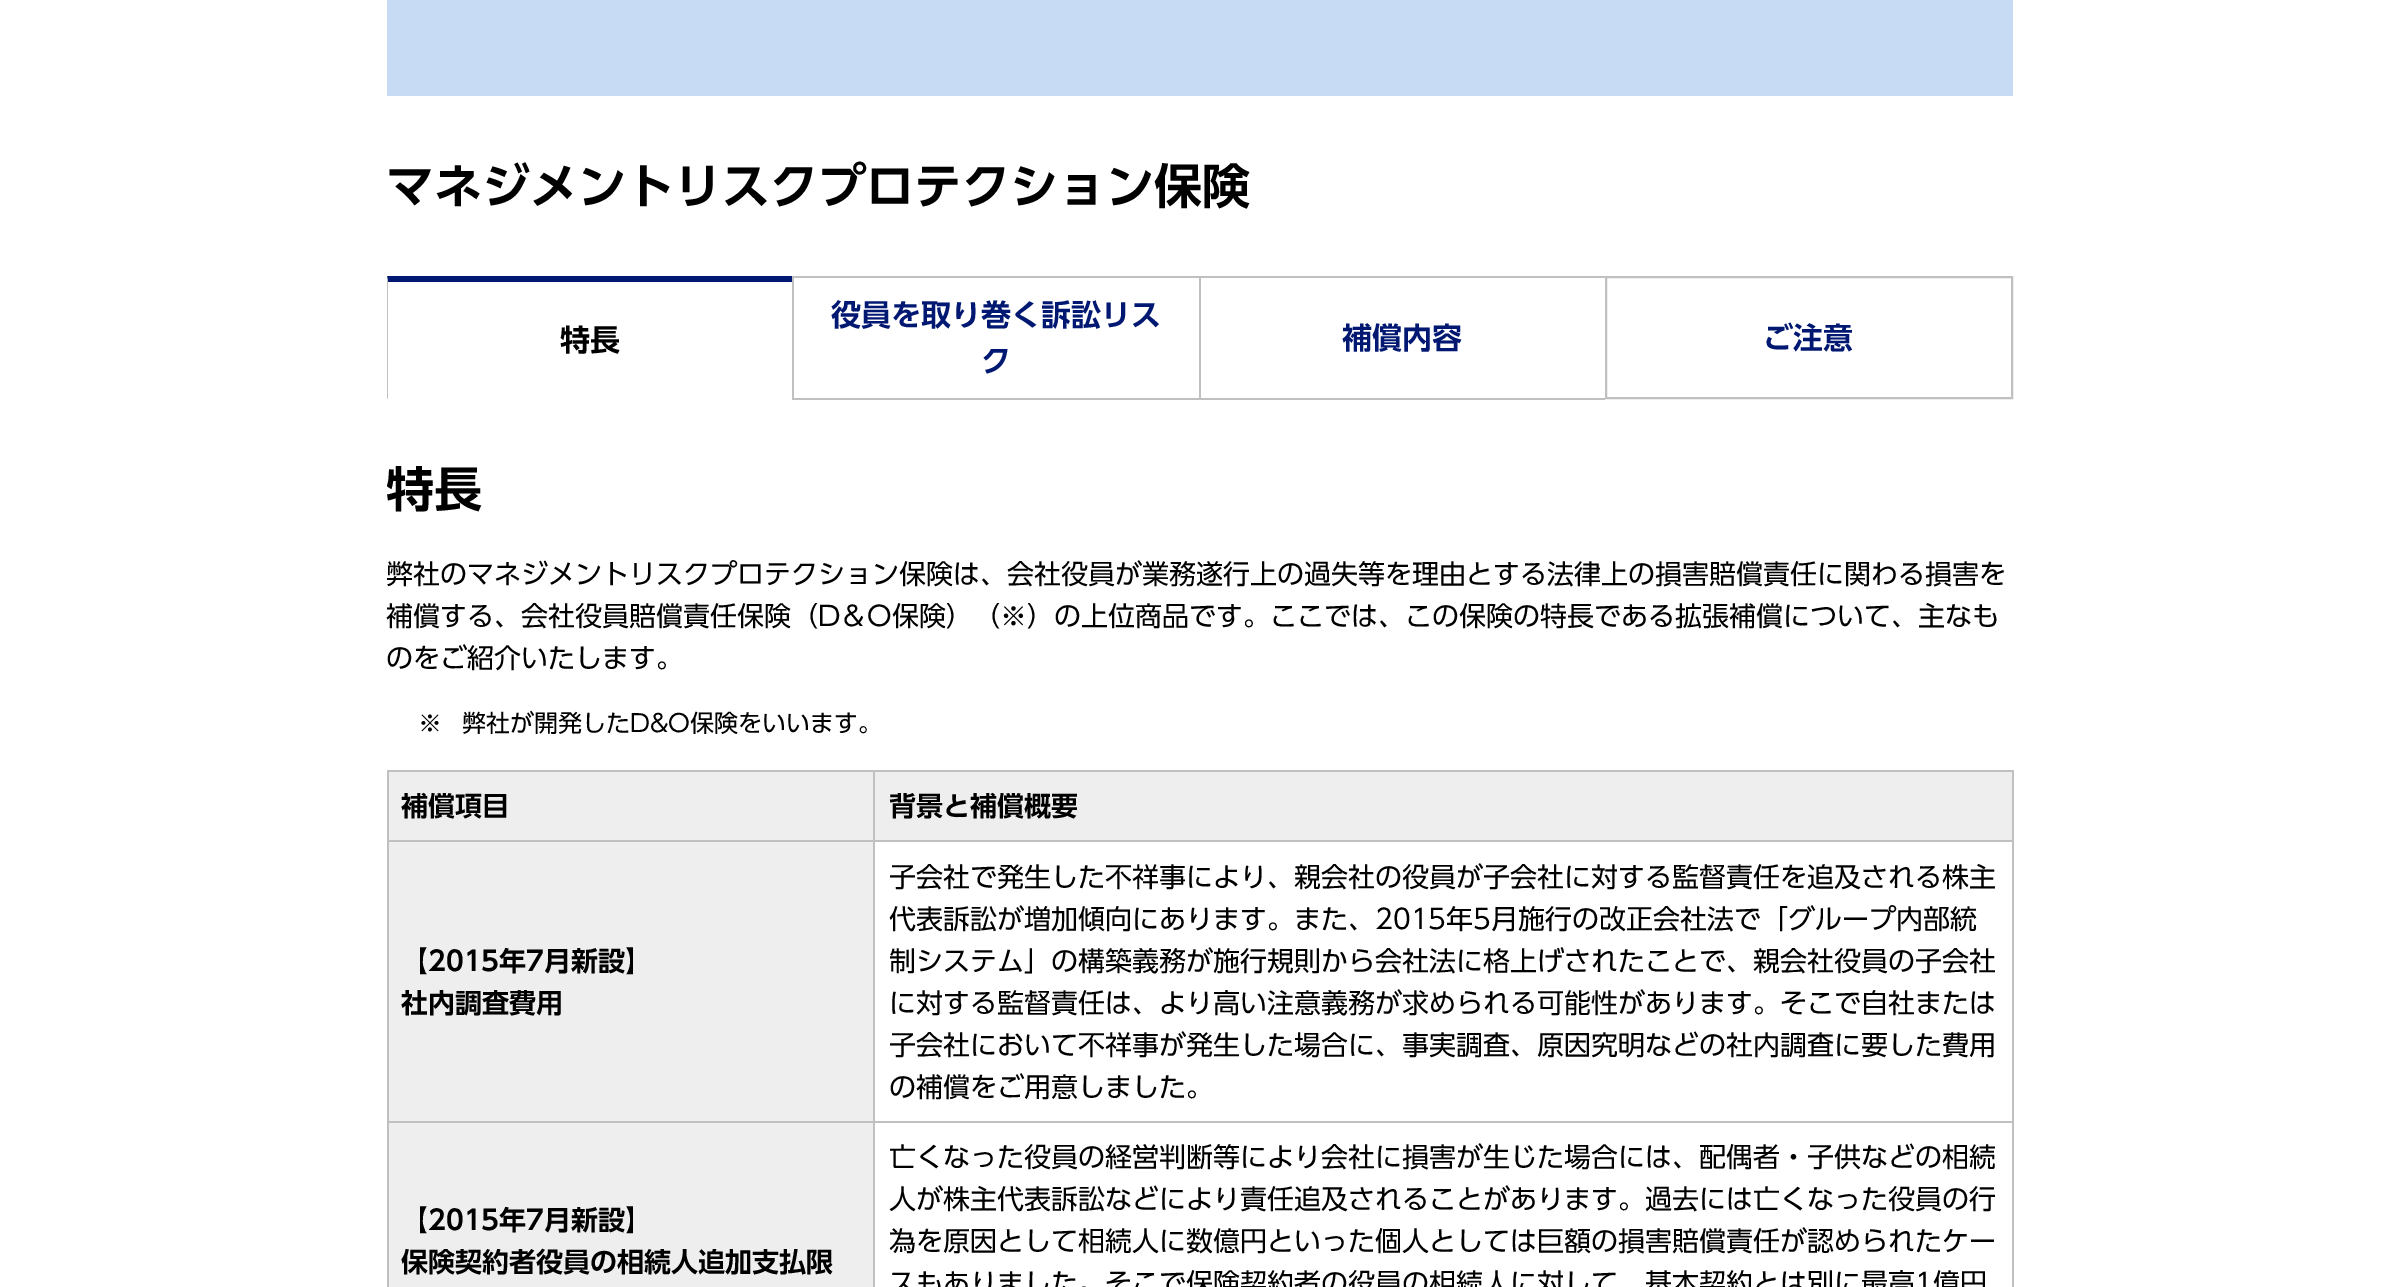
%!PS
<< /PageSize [2398 1287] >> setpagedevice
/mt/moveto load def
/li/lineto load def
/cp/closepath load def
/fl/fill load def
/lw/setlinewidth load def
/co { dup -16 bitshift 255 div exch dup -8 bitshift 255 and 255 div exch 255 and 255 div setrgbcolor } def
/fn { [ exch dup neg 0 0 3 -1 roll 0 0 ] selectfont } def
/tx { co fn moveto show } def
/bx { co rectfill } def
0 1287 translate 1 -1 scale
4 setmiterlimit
0 0 2398 1287 16#FFFFFF bx
387 0 1626 96 16#C7DBF4 bx
16#001871 co
387 276 mt 792 276 li 792 282 li 388 282 li cp fl
16#C0C0C0 co
387 399 mt 387 276 li 388 282 li 388 398 li cp fl
792 276 813 2 16#C0C0C0 bx
792 398 813 2 16#C0C0C0 bx
792 276 2 123 16#C0C0C0 bx
1199 276 2 123 16#C0C0C0 bx
2 lw
1606 277 406 121 rectstroke
389 772 484 68 16#EEEEEE bx
873 770 1140 2 16#C0C0C0 bx
873 840 1140 2 16#C0C0C0 bx
873 1121 1140 2 16#C0C0C0 bx
873 1121 2 166 16#C0C0C0 bx
387 1121 488 2 16#C0C0C0 bx
873 840 2 282 16#C0C0C0 bx
387 840 488 2 16#C0C0C0 bx
873 770 2 72 16#C0C0C0 bx
387 770 488 2 16#C0C0C0 bx
387 1121 2 166 16#C0C0C0 bx
387 840 2 282 16#C0C0C0 bx
387 770 2 72 16#C0C0C0 bx
875 772 1137 68 16#EEEEEE bx
2012 1121 2 166 16#C0C0C0 bx
2012 840 2 282 16#C0C0C0 bx
2012 770 2 72 16#C0C0C0 bx
389 842 484 279 16#EEEEEE bx
389 1123 484 164 16#EEEEEE bx
(マネジメントリスクプロテクション保険) 386 204 /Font-SemiBold 48 16#000000 tx
(特長) 560 351 /Font-SemiBold 30 16#000000 tx
(役員を取り巻く訴訟リス) 831 326 /Font-SemiBold 30 16#001871 tx
(ク) 981 372 /Font-SemiBold 30 16#001871 tx
(補償内容) 1342 349 /Font-SemiBold 30 16#001871 tx
(ご注意) 1763 349 /Font-SemiBold 30 16#001871 tx
(特長) 386 507 /Font-SemiBold 48 16#000000 tx
(弊社のマネジメントリスクプロテクション保険は、会社役員が業務遂行上の過失等を理由とする法律上の損害賠償責任に関わる損害を) 386 584 /Font-Regular 27 16#000000 tx
(補償する、会社役員賠償責任保険（D＆O保険）（※）の上位商品です。ここでは、この保険の特長である拡張補償について、主なも) 386 626 /Font-Regular 27 16#000000 tx
(のをご紹介いたします。) 386 668 /Font-Regular 27 16#000000 tx
(※) 418 732 /Font-Regular 24 16#000000 tx
(弊社が開発したD&O保険をいいます。) 462 732 /Font-Regular 24 16#000000 tx
(補償項目) 401 816 /Font-SemiBold 27 16#000000 tx
(背景と補償概要) 889 816 /Font-SemiBold 27 16#000000 tx
(【2015年7月新設】) 401 971 /Font-SemiBold 27 16#000000 tx
(社内調査費用) 401 1013 /Font-SemiBold 27 16#000000 tx
(子会社で発生した不祥事により、親会社の役員が子会社に対する監督責任を追及される株主) 889 887 /Font-Regular 27 16#000000 tx
(代表訴訟が増加傾向にあります。また、2015年5月施行の改正会社法で「グループ内部統) 889 929 /Font-Regular 27 16#000000 tx
(制システム」の構築義務が施行規則から会社法に格上げされたことで、親会社役員の子会社) 889 971 /Font-Regular 27 16#000000 tx
(に対する監督責任は、より高い注意義務が求められる可能性があります。そこで自社または) 889 1013 /Font-Regular 27 16#000000 tx
(子会社において不祥事が発生した場合に、事実調査、原因究明などの社内調査に要した費用) 889 1055 /Font-Regular 27 16#000000 tx
(の補償をご用意しました。) 889 1097 /Font-Regular 27 16#000000 tx
(【2015年7月新設】) 401 1230 /Font-SemiBold 27 16#000000 tx
(保険契約者役員の相続人追加支払限) 401 1272 /Font-SemiBold 27 16#000000 tx
(亡くなった役員の経営判断等により会社に損害が生じた場合には、配偶者・子供などの相続) 889 1167 /Font-Regular 27 16#000000 tx
(人が株主代表訴訟などにより責任追及されることがあります。過去には亡くなった役員の行) 889 1209 /Font-Regular 27 16#000000 tx
(為を原因として相続人に数億円といった個人としては巨額の損害賠償責任が認められたケー) 889 1251 /Font-Regular 27 16#000000 tx
(スもありました。そこで保険契約者の役員の相続人に対して、基本契約とは別に最高1億円) 889 1293 /Font-Regular 27 16#000000 tx
showpage
